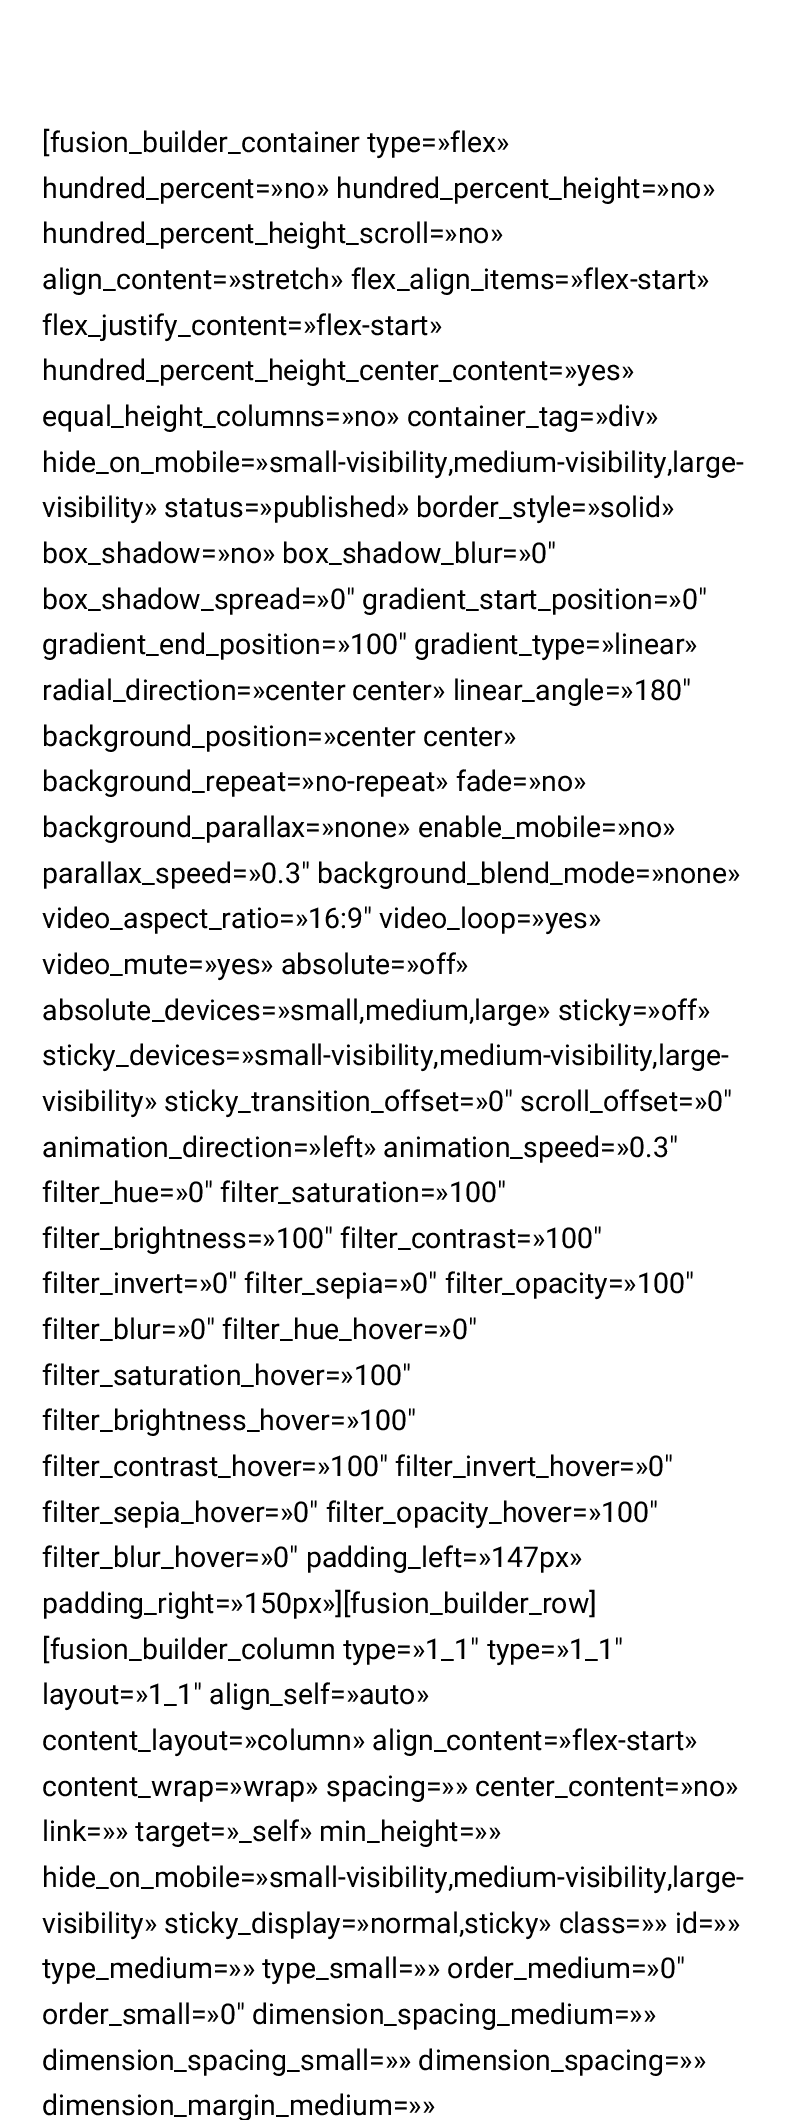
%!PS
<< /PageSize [795 2120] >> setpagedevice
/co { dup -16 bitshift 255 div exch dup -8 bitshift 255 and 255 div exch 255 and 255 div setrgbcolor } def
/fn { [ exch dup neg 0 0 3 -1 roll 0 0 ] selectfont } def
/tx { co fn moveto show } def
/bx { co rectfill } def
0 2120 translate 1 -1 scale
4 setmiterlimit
0 0 795 2120 16#FFFFFF bx
([fusion_builder_container type=»flex») 42 152 /Roboto-Regular 28.5 16#000000 tx
(hundred_percent=»no» hundred_percent_height=»no») 42 198 /Roboto-Regular 28.5 16#000000 tx
(hundred_percent_height_scroll=»no») 42 243 /Roboto-Regular 28.5 16#000000 tx
(align_content=»stretch» flex_align_items=»flex-start») 42 289 /Roboto-Regular 28.5 16#000000 tx
(flex_justify_content=»flex-start») 42 335 /Roboto-Regular 28.5 16#000000 tx
(hundred_percent_height_center_content=»yes») 42 380 /Roboto-Regular 28.5 16#000000 tx
(equal_height_columns=»no» container_tag=»div») 42 426 /Roboto-Regular 28.5 16#000000 tx
(hide_on_mobile=»small-visibility,medium-visibility,large-) 42 472 /Roboto-Regular 28.5 16#000000 tx
(visibility» status=»published» border_style=»solid») 42 517 /Roboto-Regular 28.5 16#000000 tx
(box_shadow=»no» box_shadow_blur=»0″) 42 563 /Roboto-Regular 28.5 16#000000 tx
(box_shadow_spread=»0″ gradient_start_position=»0″) 42 609 /Roboto-Regular 28.5 16#000000 tx
(gradient_end_position=»100″ gradient_type=»linear») 42 654 /Roboto-Regular 28.5 16#000000 tx
(radial_direction=»center center» linear_angle=»180″) 42 700 /Roboto-Regular 28.5 16#000000 tx
(background_position=»center center») 42 746 /Roboto-Regular 28.5 16#000000 tx
(background_repeat=»no-repeat» fade=»no») 42 791 /Roboto-Regular 28.5 16#000000 tx
(background_parallax=»none» enable_mobile=»no») 42 837 /Roboto-Regular 28.5 16#000000 tx
(parallax_speed=»0.3″ background_blend_mode=»none») 42 883 /Roboto-Regular 28.5 16#000000 tx
(video_aspect_ratio=»16:9″ video_loop=»yes») 42 928 /Roboto-Regular 28.5 16#000000 tx
(video_mute=»yes» absolute=»off») 42 974 /Roboto-Regular 28.5 16#000000 tx
(absolute_devices=»small,medium,large» sticky=»off») 42 1020 /Roboto-Regular 28.5 16#000000 tx
(sticky_devices=»small-visibility,medium-visibility,large-) 42 1065 /Roboto-Regular 28.5 16#000000 tx
(visibility» sticky_transition_offset=»0″ scroll_offset=»0″) 42 1111 /Roboto-Regular 28.5 16#000000 tx
(animation_direction=»left» animation_speed=»0.3″) 42 1157 /Roboto-Regular 28.5 16#000000 tx
(filter_hue=»0″ filter_saturation=»100″) 42 1202 /Roboto-Regular 28.5 16#000000 tx
(filter_brightness=»100″ filter_contrast=»100″) 42 1248 /Roboto-Regular 28.5 16#000000 tx
(filter_invert=»0″ filter_sepia=»0″ filter_opacity=»100″) 42 1293 /Roboto-Regular 28.5 16#000000 tx
(filter_blur=»0″ filter_hue_hover=»0″) 42 1339 /Roboto-Regular 28.5 16#000000 tx
(filter_saturation_hover=»100″) 42 1385 /Roboto-Regular 28.5 16#000000 tx
(filter_brightness_hover=»100″) 42 1430 /Roboto-Regular 28.5 16#000000 tx
(filter_contrast_hover=»100″ filter_invert_hover=»0″) 42 1476 /Roboto-Regular 28.5 16#000000 tx
(filter_sepia_hover=»0″ filter_opacity_hover=»100″) 42 1522 /Roboto-Regular 28.5 16#000000 tx
(filter_blur_hover=»0″ padding_left=»147px») 42 1567 /Roboto-Regular 28.5 16#000000 tx
(padding_right=»150px»][fusion_builder_row]) 42 1613 /Roboto-Regular 28.5 16#000000 tx
([fusion_builder_column type=»1_1″ type=»1_1″) 42 1659 /Roboto-Regular 28.5 16#000000 tx
(layout=»1_1″ align_self=»auto») 42 1704 /Roboto-Regular 28.5 16#000000 tx
(content_layout=»column» align_content=»flex-start») 42 1750 /Roboto-Regular 28.5 16#000000 tx
(content_wrap=»wrap» spacing=»» center_content=»no») 42 1796 /Roboto-Regular 28.5 16#000000 tx
(link=»» target=»_self» min_height=»») 42 1841 /Roboto-Regular 28.5 16#000000 tx
(hide_on_mobile=»small-visibility,medium-visibility,large-) 42 1887 /Roboto-Regular 28.5 16#000000 tx
(visibility» sticky_display=»normal,sticky» class=»» id=»») 42 1933 /Roboto-Regular 28.5 16#000000 tx
(type_medium=»» type_small=»» order_medium=»0″) 42 1978 /Roboto-Regular 28.5 16#000000 tx
(order_small=»0″ dimension_spacing_medium=»») 42 2024 /Roboto-Regular 28.5 16#000000 tx
(dimension_spacing_small=»» dimension_spacing=»») 42 2070 /Roboto-Regular 28.5 16#000000 tx
(dimension_margin_medium=»») 42 2115 /Roboto-Regular 28.5 16#000000 tx
showpage
